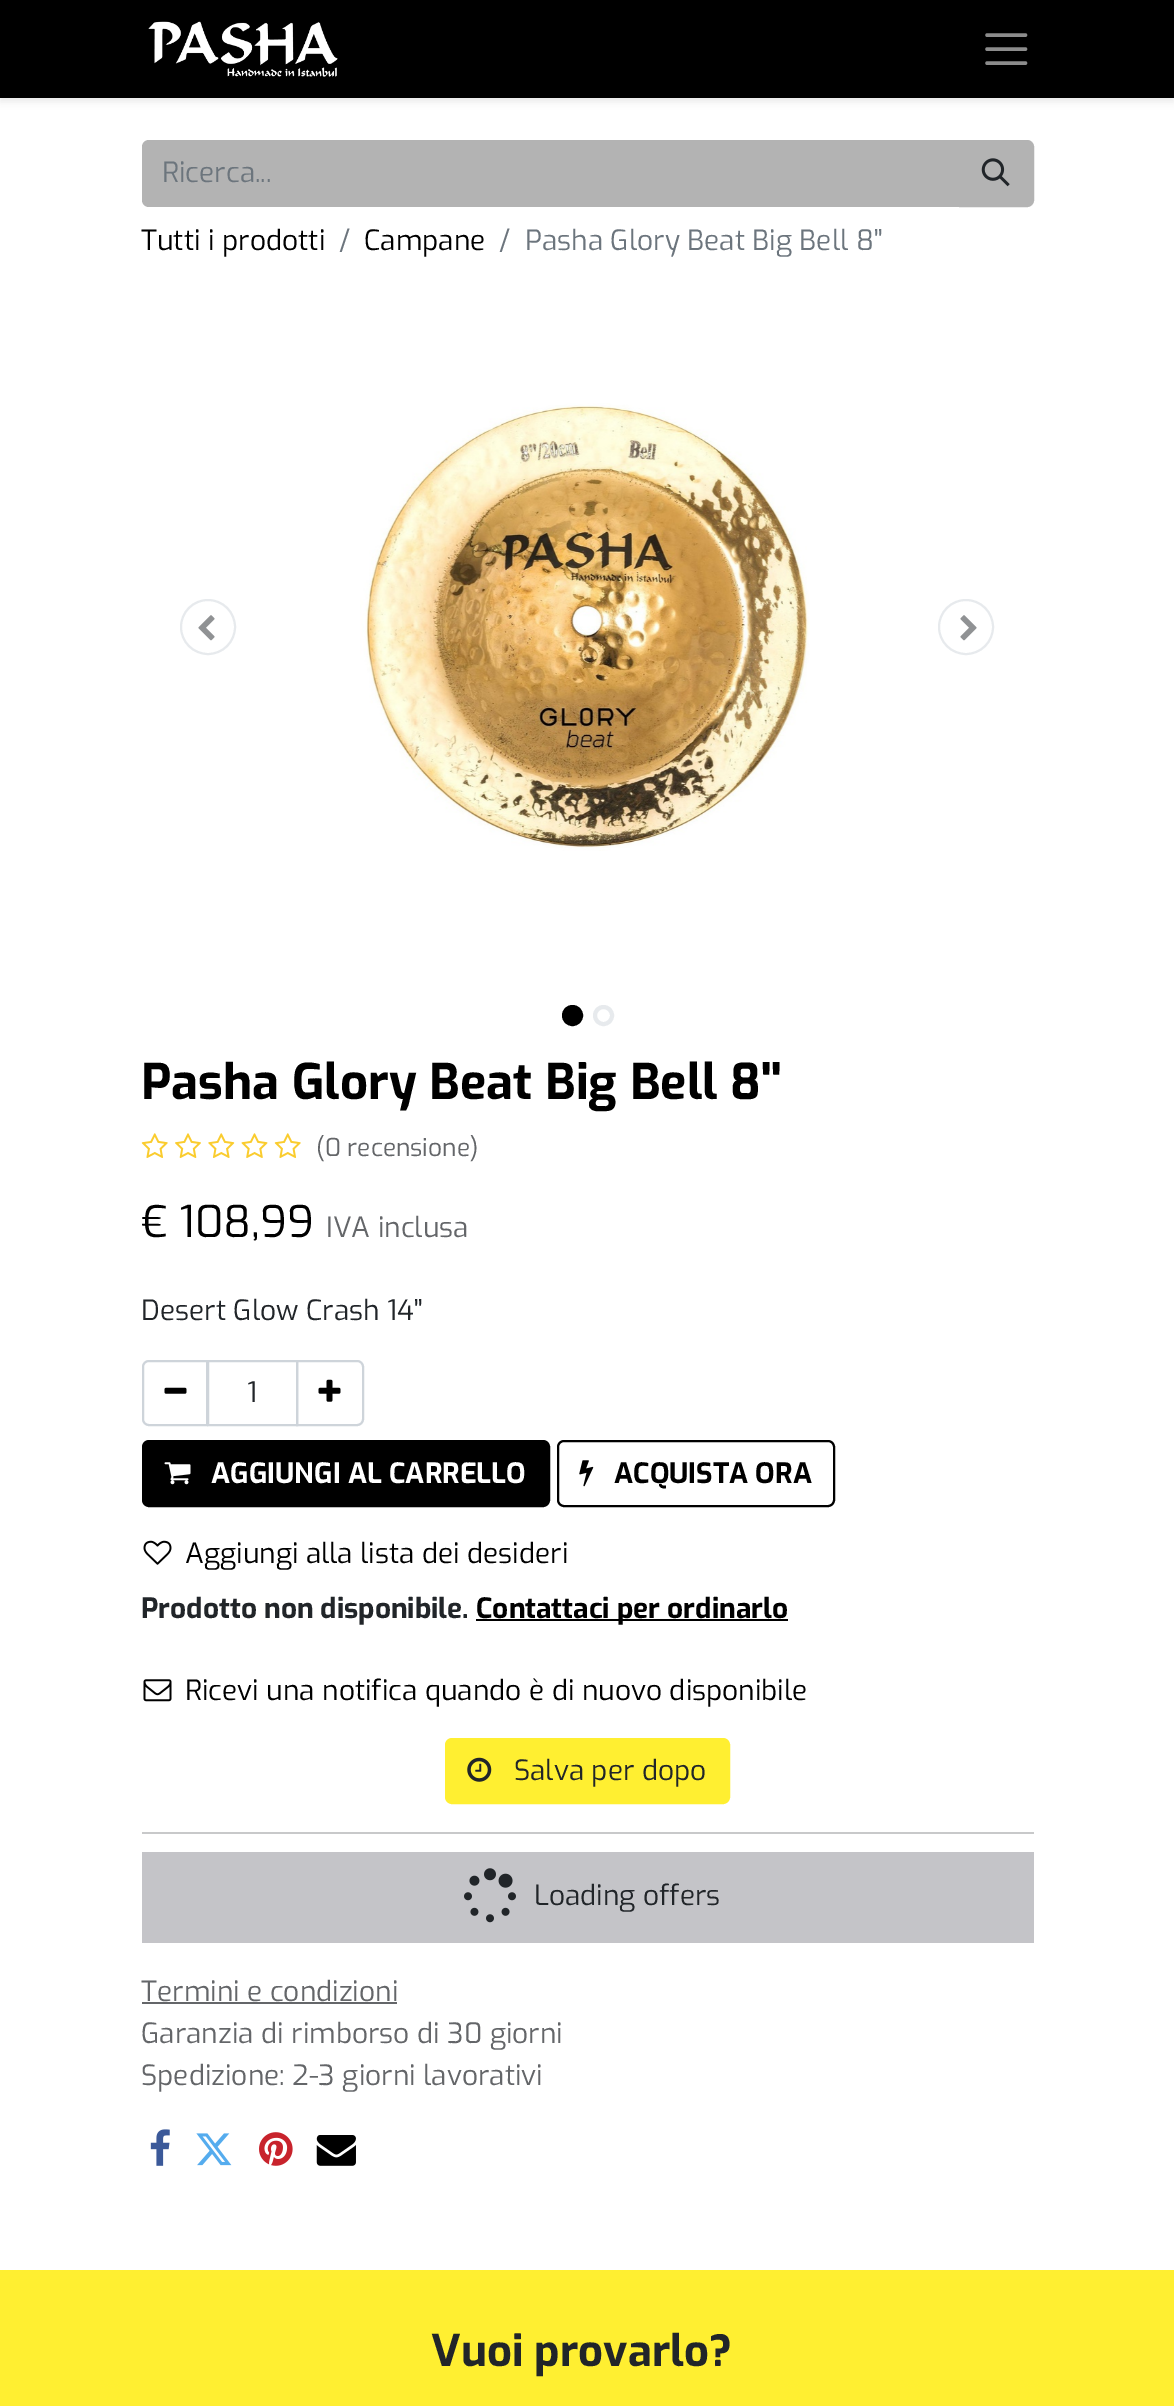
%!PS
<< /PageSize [1174 2406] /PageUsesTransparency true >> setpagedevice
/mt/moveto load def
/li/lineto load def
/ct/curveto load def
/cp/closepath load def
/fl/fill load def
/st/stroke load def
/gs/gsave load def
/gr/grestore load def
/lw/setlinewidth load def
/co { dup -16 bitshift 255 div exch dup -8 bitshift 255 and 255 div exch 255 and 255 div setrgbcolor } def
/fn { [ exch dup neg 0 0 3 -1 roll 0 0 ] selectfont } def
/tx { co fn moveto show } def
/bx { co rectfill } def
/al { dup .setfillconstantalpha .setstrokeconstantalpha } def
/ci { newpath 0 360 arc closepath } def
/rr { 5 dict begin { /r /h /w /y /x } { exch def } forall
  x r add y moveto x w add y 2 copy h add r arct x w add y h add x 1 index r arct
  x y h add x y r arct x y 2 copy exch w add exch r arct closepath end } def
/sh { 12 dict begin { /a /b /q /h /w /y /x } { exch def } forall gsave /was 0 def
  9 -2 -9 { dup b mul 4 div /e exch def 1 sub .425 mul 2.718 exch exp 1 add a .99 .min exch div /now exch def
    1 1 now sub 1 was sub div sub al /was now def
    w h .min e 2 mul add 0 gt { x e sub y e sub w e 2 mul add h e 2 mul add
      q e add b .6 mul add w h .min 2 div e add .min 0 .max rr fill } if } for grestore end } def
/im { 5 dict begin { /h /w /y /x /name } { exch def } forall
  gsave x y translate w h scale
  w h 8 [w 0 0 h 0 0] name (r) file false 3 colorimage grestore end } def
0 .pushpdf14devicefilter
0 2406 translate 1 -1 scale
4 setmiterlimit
0 0 1174 2406 16#FFFFFF bx
16#000000 co
0 4 1174 98 0 3.5 .07 sh
0 0 1174 98 16#000000 bx
(media/1.raw) 148 21 190 56 im
16#8C8C8C co
3.5 lw
1 setlinecap
987 35 mt 1025.5 35 li 987 49 mt 1025.5 49 li 987 63 mt 1025.5 63 li st
16#B3B3B3 co
149 140 mt 961 140 li 961 207 li 149 207 li 145 207 142 204 142 200 ct 142 147 li 142 143 145 140 149 140 ct cp fl
960 141 mt 1027 141 li 1030.5 141 1033 143.5 1033 147 ct 1033 200 li 1033 203.5 1030.5 206 1027 206 ct 960 206 li cp gs fl gr
2 lw
0 setlinecap
st
(media/2.raw) 981 158 29 29 im
16#E7EAED co
208 627 27 ci st
(media/3.raw) 198 615 17 26 im
(media/4.raw) 360 403 450 448 im
966 627 27 ci st
(media/5.raw) 960 615 17 26 im
16#000000 co
572.5 1015.5 8.5 ci gs fl gr
4 lw
st
16#E7EAED co
603.5 1015.5 8.5 ci st
(media/6.raw) 141 1133 27 25 im
(media/7.raw) 175 1133 26 25 im
(media/8.raw) 208 1133 27 25 im
(media/9.raw) 241 1133 27 25 im
(media/6.raw) 274 1133 27 25 im
16#CED4DA co
2 lw
208 1361 89 64 rectstroke
149 1361 mt 207 1361 li 207 1425 li 149 1425 li 145.5 1425 143 1422.5 143 1419 ct 143 1367 li 143 1363.5 145.5 1361 149 1361 ct cp st
(media/10.raw) 164 1387 23 7 im
297 1361 mt 357 1361 li 360.5 1361 363 1363.5 363 1367 ct 363 1419 li 363 1422.5 360.5 1425 357 1425 ct 297 1425 li cp st
(media/11.raw) 318 1379 23 23 im
16#000000 co
143 1441 406 65 6 rr gs fl gr
st
(media/12.raw) 164 1462 27 23 im
558 1441 276 65 6 rr st
(media/13.raw) 579 1460 15 27 im
(media/14.raw) 143 1540 29 25 im
476 1619 312 2 16#000000 bx
(media/15.raw) 143 1679 29 23 im
16#FFEF31 co
446 1739 283 64 6 rr gs fl gr
st
(media/16.raw) 467 1757 25 25 im
142 1832 892 2 16#C8C9CA bx
142 1852 892 91 16#C4C4C8 bx
(media/17.raw) 464 1868 52 55 im
142 2002 255 2 16#646669 bx
(media/18.raw) 150 2129 20 37 im
(media/19.raw) 196 2133 36 33 im
(media/20.raw) 259 2132 34 34 im
(media/21.raw) 316 2135 40 31 im
0 2270 1174 136 16#FFEF31 bx
(Ricerca...) 162 182 /Exo-Regular 28 16#6C757D tx
(Tutti i prodotti) 141 250 /Exo-Regular 28 16#000000 tx
(/) 339 250 /Exo-Regular 28 16#6C757D tx
(Campane) 364 250 /Exo-Regular 28 16#000000 tx
(/) 499 250 /Exo-Regular 28 16#6C757D tx
(Pasha Glory Beat Big Bell 8'') 525 250 /Exo-Regular 28 16#6C757D tx
(Pasha Glory Beat Big Bell 8'') 141 1099 /Exo-Bold 49 16#000000 tx
(\(0 recensione\)) 316 1156 /Exo-Regular 24.5 16#646669 tx
(€ 108,99) 141 1237 /Exo-Regular 43.5 16#000000 tx
(IVA inclusa) 326 1237 /Exo-Regular 28 16#646669 tx
(Desert Glow Crash 14'') 141 1320 /Exo-Regular 28 16#212529 tx
(1) 247 1402 /Exo-Regular 28 16#212529 tx
(AGGIUNGI AL CARRELLO) 211 1483 /Exo-Bold 28 16#FFFFFF tx
(ACQUISTA ORA) 614 1483 /Exo-Bold 28 16#000000 tx
(Aggiungi alla lista dei desideri) 185 1563 /Exo-Regular 28 16#000000 tx
(Prodotto non disponibile.) 141 1618 /Exo-Bold 28 16#212529 tx
(Contattaci per ordinarlo) 476 1618 /Exo-Bold 28 16#000000 tx
(Ricevi una notifica quando è di nuovo disponibile) 185 1700 /Exo-Regular 28 16#000000 tx
(Salva per dopo) 514 1780 /Exo-Regular 28 16#212529 tx
(Loading offers) 534 1905 /Exo-Regular 28 16#212529 tx
(Termini e condizioni) 141 2001 /Exo-Regular 28 16#646669 tx
(Garanzia di rimborso di 30 giorni) 141 2043 /Exo-Regular 28 16#646669 tx
(Spedizione: 2-3 giorni lavorativi) 141 2085 /Exo-Regular 28 16#646669 tx
(Vuoi provarlo?) 431 2366 /Exo-Bold 43.5 16#212529 tx
.poppdf14devicefilter showpage
